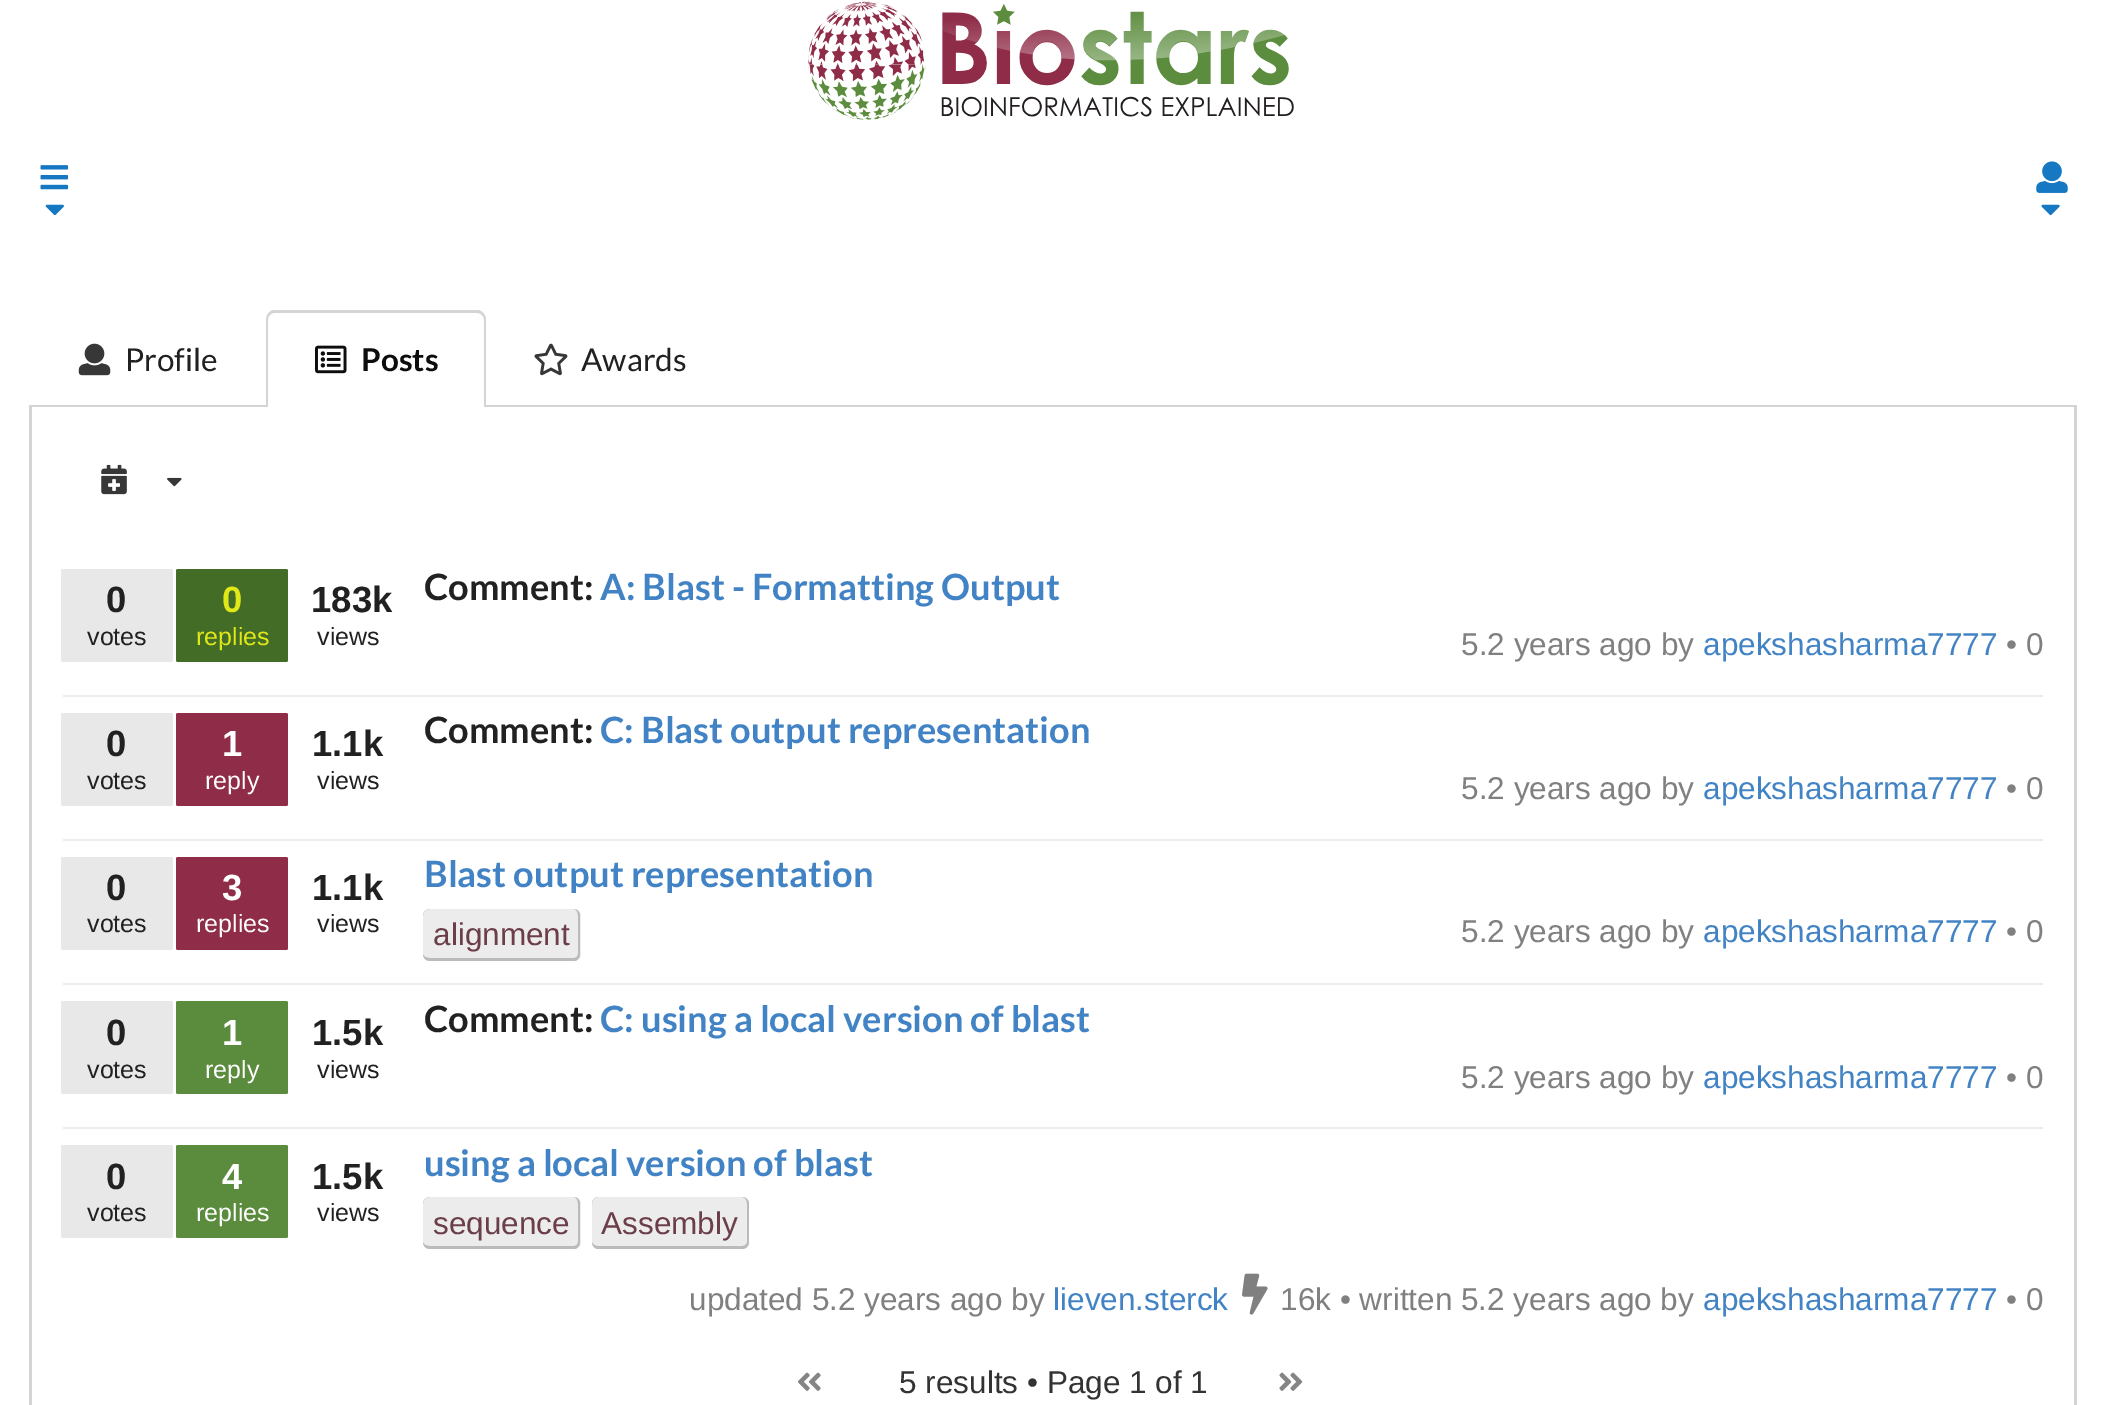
%!PS
<< /PageSize [2104 1405] >> setpagedevice
/mt/moveto load def
/li/lineto load def
/ct/curveto load def
/cp/closepath load def
/fl/fill load def
/co { dup -16 bitshift 255 div exch dup -8 bitshift 255 and 255 div exch 255 and 255 div setrgbcolor } def
/fn { [ exch dup neg 0 0 3 -1 roll 0 0 ] selectfont } def
/tx { co fn moveto show } def
/bx { co rectfill } def
/rr { 5 dict begin { /r /h /w /y /x } { exch def } forall
  x r add y moveto x w add y 2 copy h add r arct x w add y h add x 1 index r arct
  x y h add x y r arct x y 2 copy exch w add exch r arct closepath end } def
/im { 5 dict begin { /h /w /y /x /name } { exch def } forall
  gsave x y translate w h scale
  w h 8 [w 0 0 h 0 0] name (r) file false 3 colorimage grestore end } def
0 1405 translate 1 -1 scale
4 setmiterlimit
0 0 2104 1405 16#FFFFFF bx
(media/1.raw) 808 1 486 119 im
(media/2.raw) 40 165 29 25 im
(media/3.raw) 45 204 19 12 im
(media/4.raw) 2036 161 32 32 im
(media/5.raw) 2041 204 19 12 im
29 405 2048 2 16#D4D4D5 bx
(media/6.raw) 78 343 33 33 im
16#FFFFFF co
275 311 mt 477 311 li 482 311 486 315 486 320 ct 486 407 li 266 407 li 266 320 li 266 315 270 311 275 311 ct cp fl
16#D4D4D5 co
274 310 mt 477 310 li 482 310 486 315 486 320 ct 486 407 li 266 407 li 266 320 li 266 315 270 310 274 310 ct cp 274 313 mt 477 313 li 481 313 484 316 484 320 ct 484 407 li 268 407 li 268 320 li 268 316 271 313 274 313 ct cp eofill
(media/7.raw) 315 345 32 29 im
(media/8.raw) 534 343 34 33 im
29 407 mt 2077 407 li 2077 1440 li 2077 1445 2073 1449 2068 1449 ct 38 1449 li 33 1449 29 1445 29 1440 ct cp 32 407 mt 2074 407 li 2074 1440 li 2074 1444 2071 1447 2068 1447 ct 38 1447 li 35 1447 32 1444 32 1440 ct cp eofill
(media/9.raw) 101 464 26 31 im
(media/10.raw) 167 477 15 10 im
16#E8E8E8 co
61 569 112 93 2 rr fl
16#436C27 co
176 569 112 93 2 rr fl
63 695 1980 2 16#ECECEC bx
16#E8E8E8 co
61 713 112 93 2 rr fl
16#8F2C47 co
176 713 112 93 2 rr fl
63 839 1980 2 16#ECECEC bx
16#E8E8E8 co
61 857 112 93 2 rr fl
16#8F2C47 co
176 857 112 93 2 rr fl
16#ECECEC co
423 909 158 52 7 rr fl
16#BBBBBB co
430 909 mt 574 909 li 577 909 580 912 580 916 ct 580 954 li 580 958 577 961 574 961 ct 430 961 li 426 961 423 958 423 954 ct 423 916 li 423 912 426 909 430 909 ct cp 430 909 mt 574 909 li 576 909 578 912 578 916 ct 578 954 li 578 956 576 958 574 958 ct 430 958 li 426 958 423 956 423 954 ct 423 916 li 423 912 426 909 430 909 ct cp eofill
63 983 1980 2 16#ECECEC bx
16#E8E8E8 co
61 1001 112 93 2 rr fl
16#5B8C3E co
176 1001 112 93 2 rr fl
63 1127 1980 2 16#ECECEC bx
16#E8E8E8 co
61 1145 112 93 2 rr fl
16#5B8C3E co
176 1145 112 93 2 rr fl
16#ECECEC co
423 1197 158 52 7 rr fl
16#BBBBBB co
430 1197 mt 574 1197 li 577 1197 580 1200 580 1204 ct 580 1242 li 580 1246 577 1249 574 1249 ct 430 1249 li 426 1249 423 1246 423 1242 ct 423 1204 li 423 1200 426 1197 430 1197 ct cp 430 1197 mt 574 1197 li 576 1197 578 1200 578 1204 ct 578 1242 li 578 1244 576 1246 574 1246 ct 430 1246 li 426 1246 423 1244 423 1242 ct 423 1204 li 423 1200 426 1197 430 1197 ct cp eofill
16#ECECEC co
592 1197 157 52 7 rr fl
16#BBBBBB co
598 1197 mt 742 1197 li 746 1197 749 1200 749 1204 ct 749 1242 li 749 1246 746 1249 742 1249 ct 598 1249 li 595 1249 592 1246 592 1242 ct 592 1204 li 592 1200 595 1197 598 1197 ct cp 598 1197 mt 742 1197 li 745 1197 747 1200 747 1204 ct 747 1242 li 747 1244 745 1246 742 1246 ct 598 1246 li 595 1246 592 1244 592 1242 ct 592 1204 li 592 1200 595 1197 598 1197 ct cp eofill
(media/11.raw) 1242 1273 26 42 im
(media/12.raw) 798 1372 23 19 im
(media/13.raw) 1279 1372 24 19 im
(Profile) 125 371 /Lato-Regular 31.5 16#212121 tx
(Posts) 361 371 /Lato-Bold 31.5 16#0D0D0D tx
(Awards) 581 371 /Lato-Regular 31.5 16#212121 tx
(0) 106 612 /LiberationSans-Bold 36.5 16#212121 tx
(votes) 87 645 /LiberationSans-Regular 25 16#212121 tx
(0) 222 612 /LiberationSans-Bold 36.5 16#E1E818 tx
(replies) 196 645 /LiberationSans-Regular 25 16#E1E818 tx
(183k) 311 612 /LiberationSans-Bold 36.5 16#212121 tx
(views) 317 645 /LiberationSans-Regular 25 16#212121 tx
(Comment:) 424 600 /Lato-Bold 36.25 16#212121 tx
(A: Blast - Formatting Output) 600 600 /Lato-Bold 36.25 16#4183C4 tx
(5.2 years ago by) 1461 655 /LiberationSans-Regular 31.5 16#808080 tx
(apekshasharma7777) 1703 655 /LiberationSans-Regular 31.5 16#4183C4 tx
(• 0) 2006 655 /LiberationSans-Regular 31.5 16#808080 tx
(0) 106 756 /LiberationSans-Bold 36.5 16#212121 tx
(votes) 87 789 /LiberationSans-Regular 25 16#212121 tx
(1) 222 756 /LiberationSans-Bold 36.5 16#FFFFFF tx
(reply) 205 789 /LiberationSans-Regular 25 16#FFFFFF tx
(1.1k) 312 756 /LiberationSans-Bold 36.5 16#212121 tx
(views) 317 789 /LiberationSans-Regular 25 16#212121 tx
(Comment:) 424 743 /Lato-Bold 36.25 16#212121 tx
(C: Blast output representation) 600 743 /Lato-Bold 36.25 16#4183C4 tx
(5.2 years ago by) 1461 799 /LiberationSans-Regular 31.5 16#808080 tx
(apekshasharma7777) 1703 799 /LiberationSans-Regular 31.5 16#4183C4 tx
(• 0) 2006 799 /LiberationSans-Regular 31.5 16#808080 tx
(0) 106 900 /LiberationSans-Bold 36.5 16#212121 tx
(votes) 87 932 /LiberationSans-Regular 25 16#212121 tx
(3) 222 900 /LiberationSans-Bold 36.5 16#FFFFFF tx
(replies) 196 932 /LiberationSans-Regular 25 16#FFFFFF tx
(1.1k) 312 900 /LiberationSans-Bold 36.5 16#212121 tx
(views) 317 932 /LiberationSans-Regular 25 16#212121 tx
(Blast output representation) 424 887 /Lato-Bold 36.25 16#4183C4 tx
(alignment) 433 945 /LiberationSans-Regular 31.5 16#6B3E4A tx
(5.2 years ago by) 1461 942 /LiberationSans-Regular 31.5 16#808080 tx
(apekshasharma7777) 1703 942 /LiberationSans-Regular 31.5 16#4183C4 tx
(• 0) 2006 942 /LiberationSans-Regular 31.5 16#808080 tx
(0) 106 1045 /LiberationSans-Bold 36.5 16#212121 tx
(votes) 87 1078 /LiberationSans-Regular 25 16#212121 tx
(1) 222 1045 /LiberationSans-Bold 36.5 16#FFFFFF tx
(reply) 205 1078 /LiberationSans-Regular 25 16#FFFFFF tx
(1.5k) 312 1045 /LiberationSans-Bold 36.5 16#212121 tx
(views) 317 1078 /LiberationSans-Regular 25 16#212121 tx
(Comment:) 424 1032 /Lato-Bold 36.25 16#212121 tx
(C: using a local version of blast) 600 1032 /Lato-Bold 36.25 16#4183C4 tx
(5.2 years ago by) 1461 1088 /LiberationSans-Regular 31.5 16#808080 tx
(apekshasharma7777) 1703 1088 /LiberationSans-Regular 31.5 16#4183C4 tx
(• 0) 2006 1088 /LiberationSans-Regular 31.5 16#808080 tx
(0) 106 1189 /LiberationSans-Bold 36.5 16#212121 tx
(votes) 87 1221 /LiberationSans-Regular 25 16#212121 tx
(4) 222 1189 /LiberationSans-Bold 36.5 16#FFFFFF tx
(replies) 196 1221 /LiberationSans-Regular 25 16#FFFFFF tx
(1.5k) 312 1189 /LiberationSans-Bold 36.5 16#212121 tx
(views) 317 1221 /LiberationSans-Regular 25 16#212121 tx
(using a local version of blast) 424 1176 /Lato-Bold 36.25 16#4183C4 tx
(sequence) 433 1234 /LiberationSans-Regular 31.5 16#6B3E4A tx
(Assembly) 601 1234 /LiberationSans-Regular 31.5 16#6B3E4A tx
(updated 5.2 years ago by) 689 1310 /LiberationSans-Regular 31.5 16#808080 tx
(lieven.sterck) 1053 1310 /LiberationSans-Regular 31.5 16#4183C4 tx
(16k • written 5.2 years ago by) 1280 1310 /LiberationSans-Regular 31.5 16#808080 tx
(apekshasharma7777) 1703 1310 /LiberationSans-Regular 31.5 16#4183C4 tx
(• 0) 2006 1310 /LiberationSans-Regular 31.5 16#808080 tx
(5 results • Page 1 of 1) 899 1393 /LiberationSans-Regular 31.5 16#333333 tx
showpage
